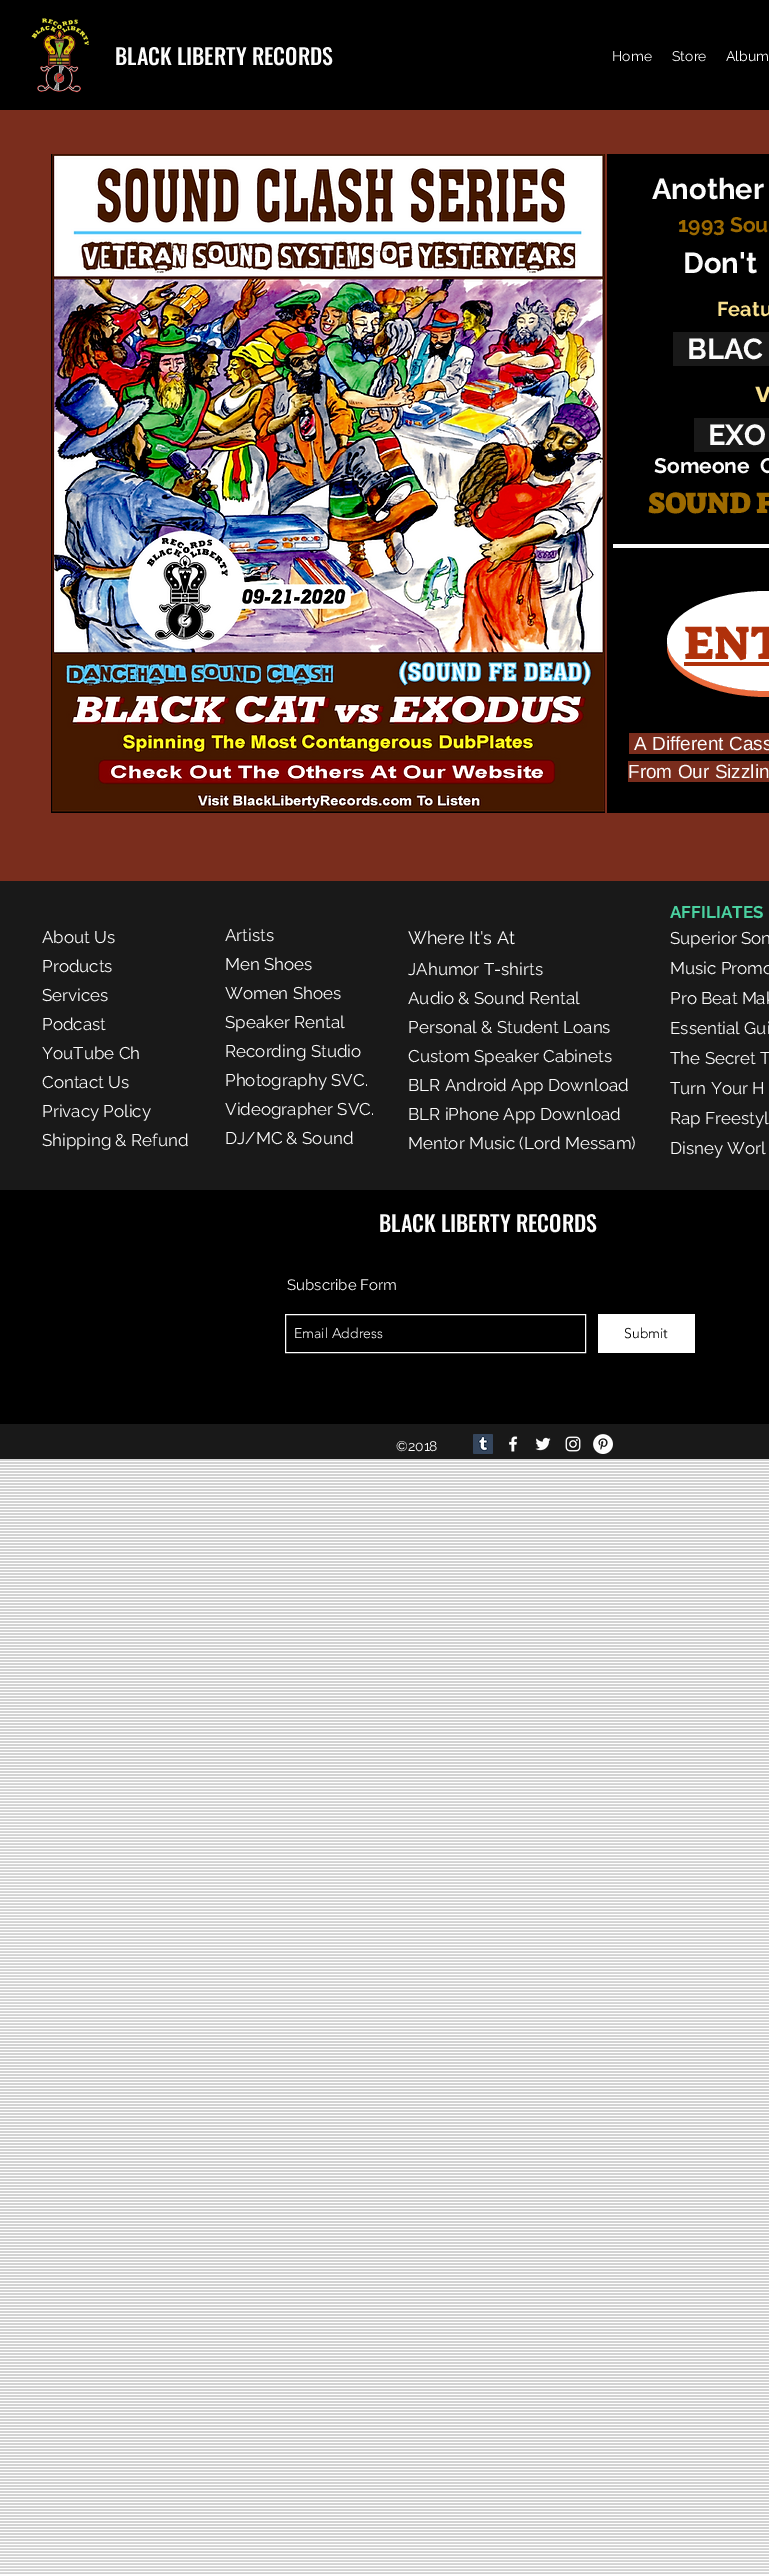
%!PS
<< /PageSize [769 2575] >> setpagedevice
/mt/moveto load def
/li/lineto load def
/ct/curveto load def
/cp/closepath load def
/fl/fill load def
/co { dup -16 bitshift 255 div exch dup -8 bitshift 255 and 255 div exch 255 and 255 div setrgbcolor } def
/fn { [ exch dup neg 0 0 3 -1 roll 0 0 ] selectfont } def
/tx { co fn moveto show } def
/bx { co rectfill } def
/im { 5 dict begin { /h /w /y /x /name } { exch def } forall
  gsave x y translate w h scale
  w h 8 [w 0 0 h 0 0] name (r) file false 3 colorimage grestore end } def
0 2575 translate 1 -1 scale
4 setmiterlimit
0 0 769 2575 16#FFFFFF bx
0 0 769 110 16#000000 bx
(media/1.raw) 31 18 58 75 im
0 110 769 771 16#7A2D1D bx
(media/2.raw) 51 154 554 659 im
607 154 162 659 16#000000 bx
673 332 96 34 16#191919 bx
694 418 75 34 16#191919 bx
613 544 156 4 16#FBFBFB bx
16#EB6B3D co
667 644 mt 667 647 li 667 675 712 697 768 697 ct 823 697 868 675 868 647 ct 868 644 li 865 670 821 691 768 691 ct 714 691 670 670 667 644 ct cp fl
16#FFFFFF co
767.5 591 mt 823 591 868 613.5 868 641 ct 868 668.5 823 691 767.5 691 ct 712 691 667 668.5 667 641 ct 667 613.5 712 591 767.5 591 ct cp fl
684 662 85 4 16#B0310B bx
629 733 140 21 16#7A2D1D bx
628 761 141 21 16#7A2D1D bx
0 881 769 309 16#191919 bx
0 1190 769 234 16#000000 bx
16#FFFFFF co
285.5 1314.5 300 38 rectstroke
598 1314 97 39 16#FFFFFF bx
0 1424 769 35 16#191919 bx
(media/3.raw) 473 1434 20 20 im
(media/4.raw) 509 1436 9 16 im
(media/5.raw) 535 1437 16 14 im
(media/6.raw) 565 1436 16 16 im
(media/7.raw) 593 1434 20 20 im
(media/8.raw) 0 1459 769 1115 im
(BLACK LIBERTY RECORDS) 115 65 /Oswald-Medium 22 16#FBFBFB tx
(Home) 612 61 /Raleway-Regular 14 16#FBFBFB tx
(Store) 672 61 /Raleway-Regular 14 16#FBFBFB tx
(Album) 726 61 /Raleway-Regular 14 16#FBFBFB tx
(Another) 652 199 /Raleway-Bold 29 16#FBFBFB tx
(1993 Sou) 678 232 /Raleway-Bold 21 16#9D6A00 tx
(Don't) 683 273 /Raleway-Bold 29 16#FBFBFB tx
(Featu) 717 316 /Raleway-Bold 20 16#F7DF8D tx
(BLAC) 687 359 /Raleway-Bold 29 16#FBFBFB tx
(v) 755 402 /Raleway-Bold 29 16#F7DF8D tx
(EXO) 708 445 /Raleway-Bold 29 16#FBFBFB tx
(Someone  G) 654 473 /Raleway-Bold 21 16#FBFBFB tx
(SOUND F) 648 513 /SuezOne-Bold 29 16#9D6A00 tx
(ENT) 684 659 /SuezOne-Regular 48 16#B0310B tx
(A Different Cass) 634 750 /LiberationSans-Regular 19 16#FBFBFB tx
(From Our Sizzlin) 628 778 /LiberationSans-Regular 19 16#FBFBFB tx
(AFFILIATES) 670 918 /Raleway-Bold 17 16#4BD1A0 tx
(About Us) 42 943 /Raleway-Regular 17 16#FBFBFB tx
(Products) 42 972 /Raleway-Regular 17 16#FBFBFB tx
(Services) 42 1001 /Raleway-Regular 17 16#FBFBFB tx
(Podcast) 42 1030 /Raleway-Regular 17 16#FBFBFB tx
(YouTube Ch) 42 1059 /Raleway-Regular 17 16#FBFBFB tx
(Contact Us) 42 1088 /Raleway-Regular 17 16#FBFBFB tx
(Privacy Policy) 42 1117 /Raleway-Regular 17 16#FBFBFB tx
(Shipping & Refund) 42 1146 /Raleway-Regular 17 16#FBFBFB tx
(Artists) 225 941 /Raleway-Regular 17 16#FBFBFB tx
(Men Shoes) 225 970 /Raleway-Regular 17 16#FBFBFB tx
(Women Shoes) 225 999 /Raleway-Regular 17 16#FBFBFB tx
(Speaker Rental) 225 1028 /Raleway-Regular 17 16#FBFBFB tx
(Recording Studio) 225 1057 /Raleway-Regular 17 16#FBFBFB tx
(Photography SVC.) 225 1086 /Raleway-Regular 17 16#FBFBFB tx
(Videographer SVC.) 225 1115 /Raleway-Regular 17 16#FBFBFB tx
(DJ/MC & Sound) 225 1144 /Raleway-Regular 17 16#FBFBFB tx
(Where It's At) 408 944 /Raleway-Regular 18 16#FBFBFB tx
(JAhumor T-shirts) 408 975 /Raleway-Regular 17 16#FBFBFB tx
(Audio & Sound Rental) 408 1004 /Raleway-Regular 17 16#FBFBFB tx
(Personal & Student Loans) 408 1033 /Raleway-Regular 17 16#FBFBFB tx
(Custom Speaker Cabinets) 408 1062 /Raleway-Regular 17 16#FBFBFB tx
(BLR Android App Download) 408 1091 /Raleway-Regular 17 16#FBFBFB tx
(BLR iPhone App Download) 408 1120 /Raleway-Regular 17 16#FBFBFB tx
(Mentor Music \(Lord Messam\)) 408 1149 /Raleway-Regular 17 16#FBFBFB tx
(Superior Son) 670 944 /Raleway-Regular 17 16#FBFBFB tx
(Music Promo) 670 974 /Raleway-Regular 17 16#FBFBFB tx
(Pro Beat Mak) 670 1004 /Raleway-Regular 17 16#FBFBFB tx
(Essential Gui) 670 1034 /Raleway-Regular 17 16#FBFBFB tx
(The Secret T) 670 1064 /Raleway-Regular 17 16#FBFBFB tx
(Turn Your H) 670 1094 /Raleway-Regular 17 16#FBFBFB tx
(Rap Freestyl) 670 1124 /Raleway-Regular 17 16#FBFBFB tx
(Disney Worl) 670 1154 /Raleway-Regular 17 16#FBFBFB tx
(BLACK LIBERTY RECORDS) 379 1232 /Oswald-Medium 22 16#FBFBFB tx
(Subscribe Form) 287 1290 /Raleway-Regular 15 16#FBFBFB tx
(Email Address) 294 1338 /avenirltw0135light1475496-Light 14 16#FBFBFB tx
(Submit) 624 1338 /avenirltw0135light1475496-Light 14 16#000000 tx
(©2018) 396 1451 /Raleway-Regular 14 16#FBFBFB tx
showpage
